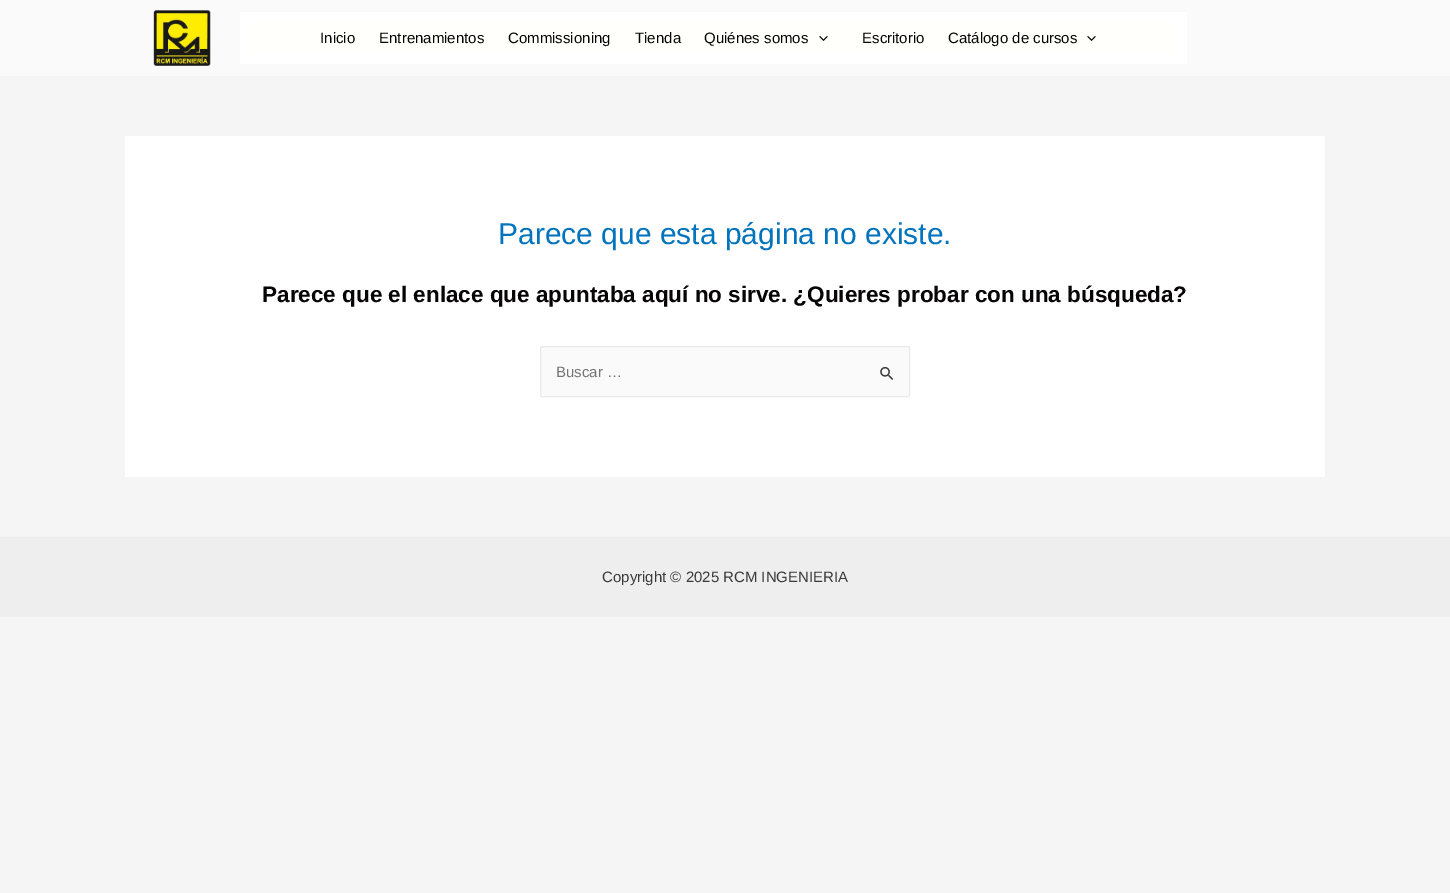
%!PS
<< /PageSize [1450 893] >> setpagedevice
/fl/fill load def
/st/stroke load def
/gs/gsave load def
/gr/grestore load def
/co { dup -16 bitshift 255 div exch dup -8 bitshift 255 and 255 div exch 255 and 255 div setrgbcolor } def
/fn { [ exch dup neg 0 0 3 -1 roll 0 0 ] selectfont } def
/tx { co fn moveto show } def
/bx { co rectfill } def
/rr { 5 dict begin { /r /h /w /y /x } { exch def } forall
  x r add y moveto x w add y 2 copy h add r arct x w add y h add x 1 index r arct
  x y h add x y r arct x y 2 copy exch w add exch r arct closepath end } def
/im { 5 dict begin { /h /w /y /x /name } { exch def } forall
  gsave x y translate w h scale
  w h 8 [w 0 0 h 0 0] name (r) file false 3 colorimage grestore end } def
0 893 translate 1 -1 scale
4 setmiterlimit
0 0 1450 893 16#F5F5F5 bx
0 0 1450 76 16#FAFAFA bx
(media/1.raw) 153 10 58 56 im
240 12 947 52 16#FFFFFF bx
250 22 927 32 16#FFFFFB bx
(media/2.raw) 819 36 9 5 im
(media/2.raw) 1087 36 9 5 im
125 136 1200 341 16#FFFFFF bx
16#FAFAFA co
540.5 346.5 369 50 1.5 rr gs fl gr
16#EAEAEA co
st
(media/3.raw) 880 366 13 14 im
0 537 1450 80 16#EEEEEE bx
(Inicio) 320 43 /LiberationSans-Regular 15 16#060404 tx
(Entrenamientos) 379 43 /LiberationSans-Regular 15 16#060404 tx
(Commissioning) 508 43 /LiberationSans-Regular 15 16#060404 tx
(Tienda) 635 43 /LiberationSans-Regular 15 16#060404 tx
(Quiénes somos) 704 43 /LiberationSans-Regular 15 16#060404 tx
(Escritorio) 862 43 /LiberationSans-Regular 15 16#060404 tx
(Catálogo de cursos) 948 43 /LiberationSans-Regular 15 16#060404 tx
(Parece que esta página no existe.) 498 244 /LiberationSans-Regular 30 16#0274BE tx
(Parece que el enlace que apuntaba aquí no sirve. ¿Quieres probar con una búsqueda?) 262 302 /LiberationSans-Bold 22.5 16#060404 tx
(Buscar …) 556 377 /LiberationSans-Regular 15 16#757575 tx
(Copyright © 2025 RCM INGENIERIA) 602 582 /LiberationSans-Regular 15 16#3A3A3A tx
showpage
